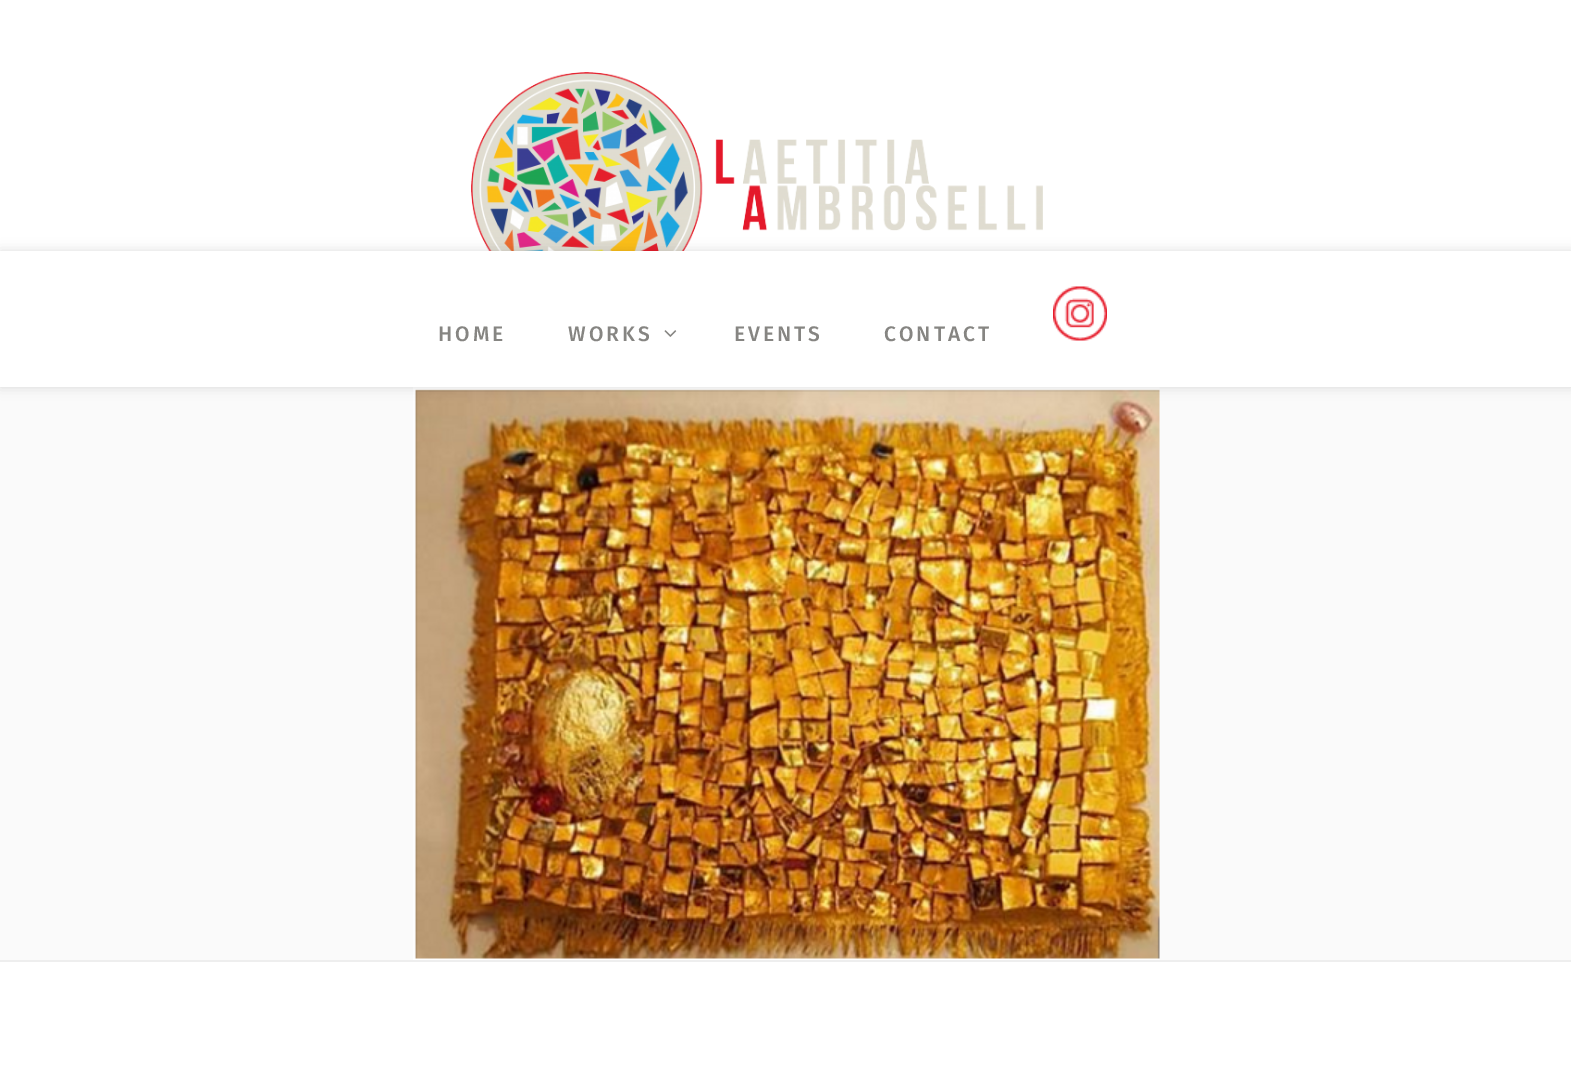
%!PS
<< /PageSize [1571 1088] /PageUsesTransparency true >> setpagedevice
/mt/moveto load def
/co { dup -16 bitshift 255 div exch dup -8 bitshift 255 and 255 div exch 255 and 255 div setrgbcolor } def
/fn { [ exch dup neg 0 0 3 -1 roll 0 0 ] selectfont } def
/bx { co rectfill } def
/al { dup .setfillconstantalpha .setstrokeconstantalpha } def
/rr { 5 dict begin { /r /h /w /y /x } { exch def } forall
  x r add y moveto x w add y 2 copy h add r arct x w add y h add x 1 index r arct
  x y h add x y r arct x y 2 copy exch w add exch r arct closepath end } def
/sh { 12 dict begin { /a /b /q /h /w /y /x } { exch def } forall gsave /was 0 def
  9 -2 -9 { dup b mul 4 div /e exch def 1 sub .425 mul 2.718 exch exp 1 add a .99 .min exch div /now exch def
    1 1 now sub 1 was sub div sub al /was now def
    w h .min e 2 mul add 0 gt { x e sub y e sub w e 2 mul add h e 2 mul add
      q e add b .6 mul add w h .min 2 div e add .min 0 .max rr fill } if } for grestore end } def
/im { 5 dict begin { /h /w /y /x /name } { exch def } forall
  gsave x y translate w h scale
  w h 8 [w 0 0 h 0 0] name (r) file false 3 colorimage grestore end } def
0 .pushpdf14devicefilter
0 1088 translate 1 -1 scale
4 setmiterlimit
0 0 1571 1088 16#FFFFFF bx
(media/1.raw) 471 72 572 179 im
0 387 1571 573 16#FAFAFA bx
(media/4.raw) 413 387 747 573 im
16#000000 co
0 251 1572 136 0 6 .13 sh
0 251 1571 136 16#FFFFFF bx
(media/2.raw) 664 330 13 7 im
(media/3.raw) 1053 286 54 55 im
0 960 1571 2 16#EEEEEE bx
/FiraSans-Medium 21 fn
16#868582 co
438 341 mt 3 0 (HOME) ashow
568 341 mt 3 0 (WORKS) ashow
734 341 mt 3 0 (EVENTS) ashow
884 341 mt 3 0 (CONTACT) ashow
.poppdf14devicefilter showpage
